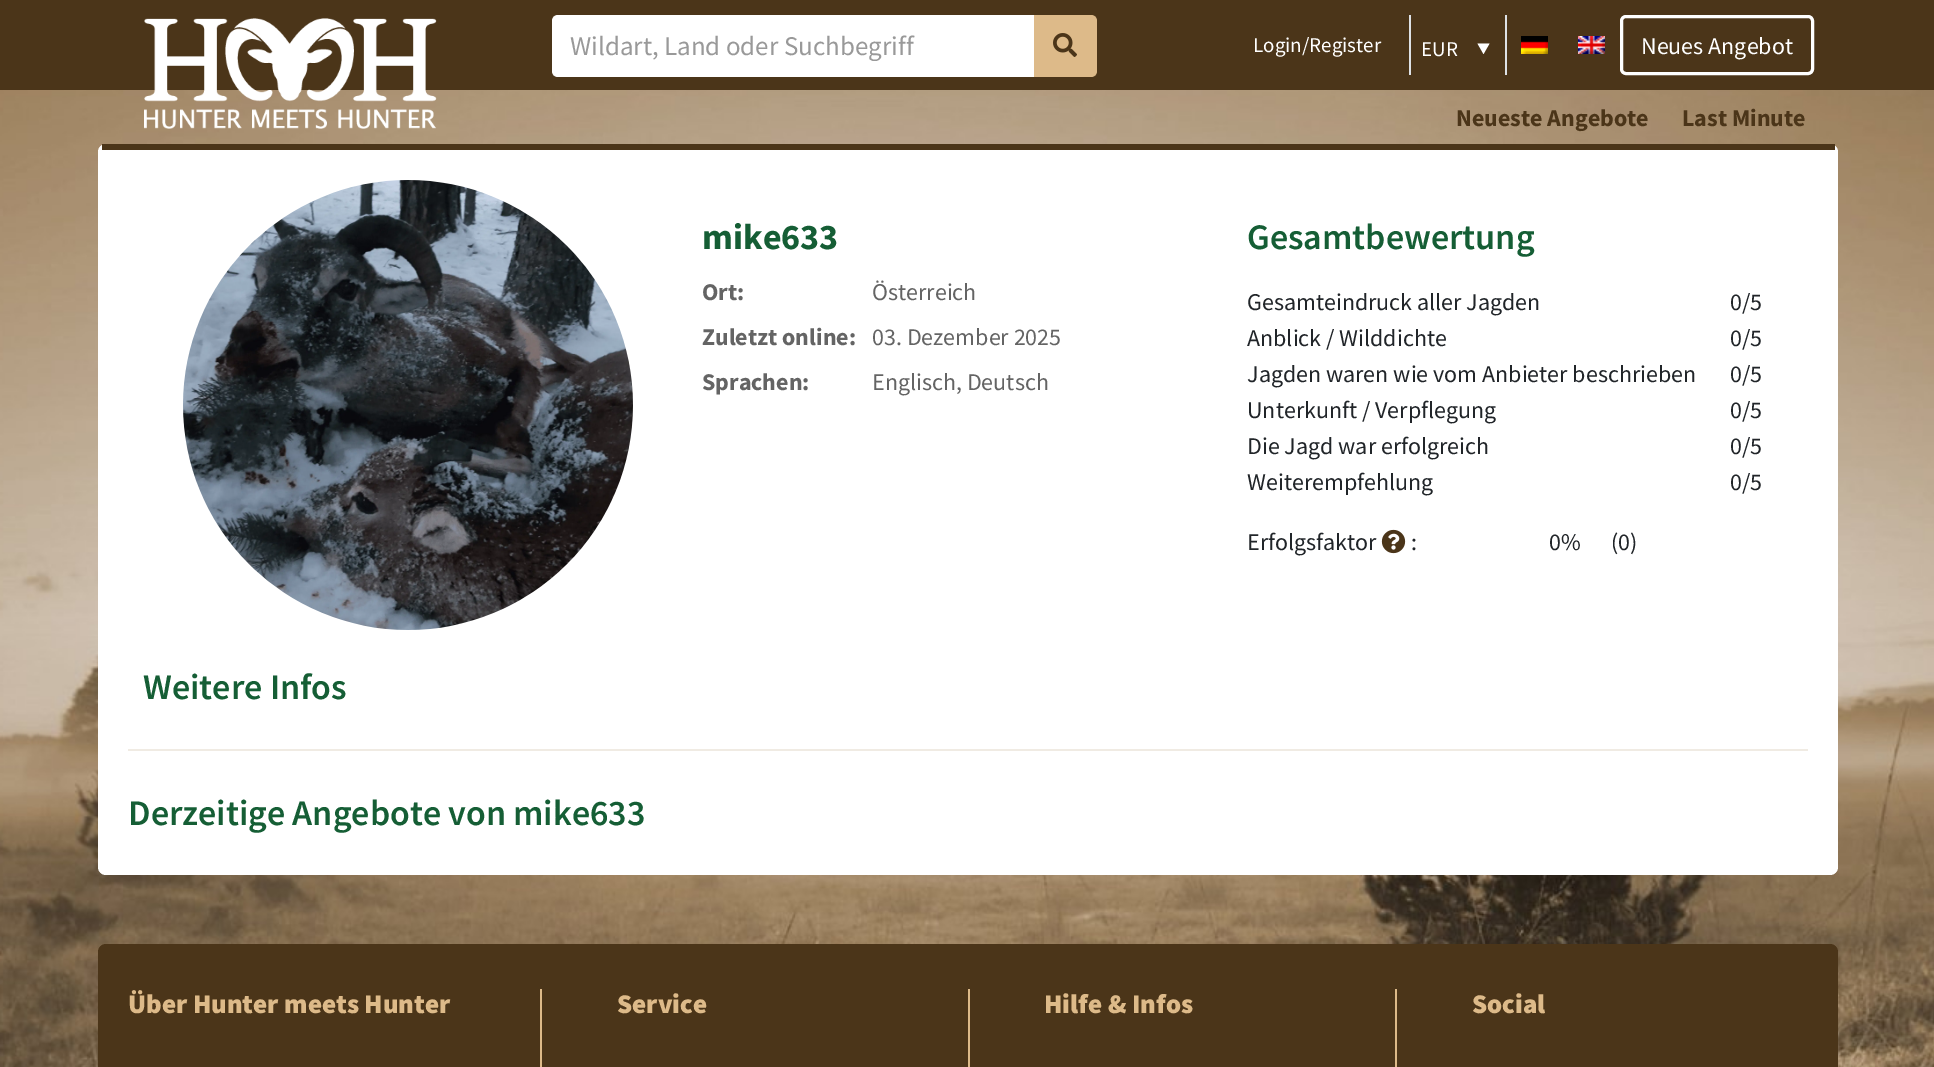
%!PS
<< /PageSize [1934 1067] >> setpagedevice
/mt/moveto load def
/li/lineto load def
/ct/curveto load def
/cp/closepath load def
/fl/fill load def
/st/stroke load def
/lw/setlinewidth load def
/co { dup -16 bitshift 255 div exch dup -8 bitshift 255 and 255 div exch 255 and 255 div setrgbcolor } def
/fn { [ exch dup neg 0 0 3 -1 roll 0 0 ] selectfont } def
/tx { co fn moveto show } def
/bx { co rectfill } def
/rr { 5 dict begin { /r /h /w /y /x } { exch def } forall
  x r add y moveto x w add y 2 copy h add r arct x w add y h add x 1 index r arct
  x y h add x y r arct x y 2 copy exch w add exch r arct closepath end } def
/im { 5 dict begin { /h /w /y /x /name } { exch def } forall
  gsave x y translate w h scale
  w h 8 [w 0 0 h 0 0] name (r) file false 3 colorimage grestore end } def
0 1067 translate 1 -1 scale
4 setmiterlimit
0 0 1934 1067 16#FFFFFF bx
(media/1.raw) 0 90 1934 977 im
0 0 1934 90 16#4B3519 bx
(media/2.raw) 144 18 293 111 im
16#FFFFFF co
558 15 mt 1034 15 li 1034 77 li 558 77 li 554.5 77 552 74.5 552 71 ct 552 21 li 552 17.5 554.5 15 558 15 ct cp fl
16#DDBA89 co
1034 15 mt 1091 15 li 1094.5 15 1097 17.5 1097 21 ct 1097 71 li 1097 74.5 1094.5 77 1091 77 ct 1034 77 li cp fl
(media/3.raw) 1053 33 24 24 im
1409 15 2 60 16#DEE2E6 bx
1505 15 2 60 16#DEE2E6 bx
16#FFFFFF co
1477.5 43.5 mt 1489.5 43.5 li 1483.5 54 li cp fl
(media/4.raw) 1521 36 27 18 im
(media/5.raw) 1578 36 27 18 im
3 lw
1621.5 16.5 191 57 4.5 rr st
98 144 1740 731 8 rr fl
102 144 1733 6 16#4B3519 bx
(media/6.raw) 183 180 450 450 im
(media/7.raw) 1381 529 25 25 im
128 749 1680 2 16#F0EBE3 bx
16#4B3519 co
98 944 1740 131 8 rr fl
540 989 2 78 16#DDBA89 bx
968 989 2 78 16#DDBA89 bx
1395 989 2 78 16#DDBA89 bx
(Wildart, Land oder Suchbegriff) 570 55 /SourceSansPro-Regular 27 16#999999 tx
(Login/Register) 1253 52 /SourceSansPro-Regular 21 16#FFFFFF tx
(EUR) 1421 56 /SourceSansPro-Regular 21 16#FFFFFF tx
(Neues Angebot) 1641 54 /SourceSansPro-Regular 24 16#FFFFFF tx
(Neueste Angebote) 1456 126 /SourceSansPro-Bold 24 16#4B3519 tx
(Last Minute) 1682 126 /SourceSansPro-Bold 24 16#4B3519 tx
(mike633) 702 249 /SourceSansPro-Bold 36 16#155E35 tx
(Ort:) 702 300 /SourceSansPro-Bold 24 16#646464 tx
(Österreich) 872 300 /SourceSansPro-Regular 24 16#646464 tx
(Zuletzt online:) 702 345 /SourceSansPro-Bold 24 16#646464 tx
(03. Dezember 2025) 872 345 /SourceSansPro-Regular 24 16#646464 tx
(Sprachen:) 702 390 /SourceSansPro-Bold 24 16#646464 tx
(Englisch, Deutsch) 872 390 /SourceSansPro-Regular 24 16#646464 tx
(Gesamtbewertung) 1247 249 /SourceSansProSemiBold-SemiBold 36 16#155E35 tx
(Gesamteindruck aller Jagden) 1247 310 /SourceSansPro-Regular 24 16#212529 tx
(0/5) 1730 310 /SourceSansPro-Regular 24 16#212529 tx
(Anblick / Wilddichte) 1247 346 /SourceSansPro-Regular 24 16#212529 tx
(0/5) 1730 346 /SourceSansPro-Regular 24 16#212529 tx
(Jagden waren wie vom Anbieter beschrieben) 1247 382 /SourceSansPro-Regular 24 16#212529 tx
(0/5) 1730 382 /SourceSansPro-Regular 24 16#212529 tx
(Unterkunft / Verpflegung) 1247 418 /SourceSansPro-Regular 24 16#212529 tx
(0/5) 1730 418 /SourceSansPro-Regular 24 16#212529 tx
(Die Jagd war erfolgreich) 1247 454 /SourceSansPro-Regular 24 16#212529 tx
(0/5) 1730 454 /SourceSansPro-Regular 24 16#212529 tx
(Weiterempfehlung) 1247 490 /SourceSansPro-Regular 24 16#212529 tx
(0/5) 1730 490 /SourceSansPro-Regular 24 16#212529 tx
(Erfolgsfaktor) 1247 550 /SourceSansPro-Regular 24 16#212529 tx
(:) 1411 550 /SourceSansPro-Regular 24 16#212529 tx
(0%) 1549 550 /SourceSansPro-Regular 24 16#212529 tx
(\(0\)) 1611 550 /SourceSansPro-Regular 24 16#212529 tx
(Weitere Infos) 143 699 /SourceSansProSemiBold-SemiBold 36 16#155E35 tx
(Derzeitige Angebote von mike633) 128 825 /SourceSansProSemiBold-SemiBold 36 16#155E35 tx
(Über Hunter meets Hunter) 128 1013 /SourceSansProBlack-Black 27 16#DDBA89 tx
(Service) 617 1013 /SourceSansProBlack-Black 27 16#DDBA89 tx
(Hilfe & Infos) 1044 1013 /SourceSansProBlack-Black 27 16#DDBA89 tx
(Social) 1472 1013 /SourceSansProBlack-Black 27 16#DDBA89 tx
showpage
